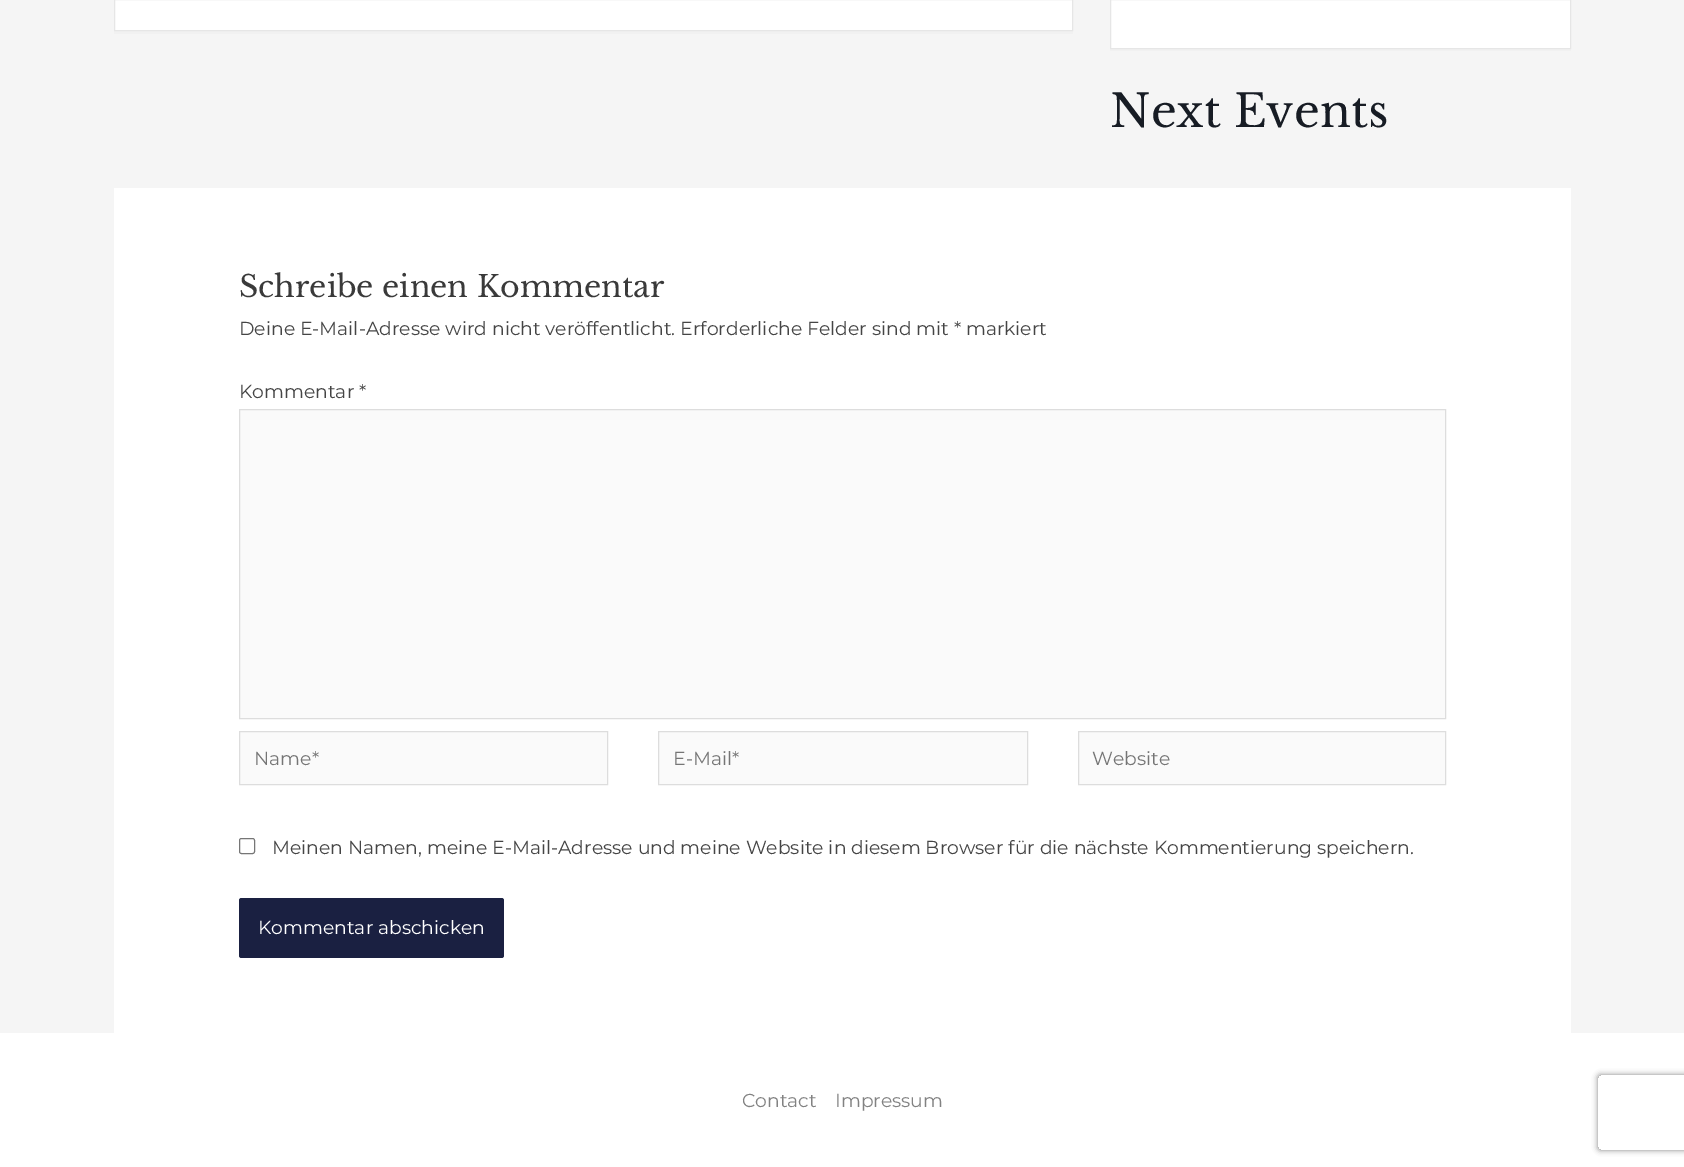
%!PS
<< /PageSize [1684 1167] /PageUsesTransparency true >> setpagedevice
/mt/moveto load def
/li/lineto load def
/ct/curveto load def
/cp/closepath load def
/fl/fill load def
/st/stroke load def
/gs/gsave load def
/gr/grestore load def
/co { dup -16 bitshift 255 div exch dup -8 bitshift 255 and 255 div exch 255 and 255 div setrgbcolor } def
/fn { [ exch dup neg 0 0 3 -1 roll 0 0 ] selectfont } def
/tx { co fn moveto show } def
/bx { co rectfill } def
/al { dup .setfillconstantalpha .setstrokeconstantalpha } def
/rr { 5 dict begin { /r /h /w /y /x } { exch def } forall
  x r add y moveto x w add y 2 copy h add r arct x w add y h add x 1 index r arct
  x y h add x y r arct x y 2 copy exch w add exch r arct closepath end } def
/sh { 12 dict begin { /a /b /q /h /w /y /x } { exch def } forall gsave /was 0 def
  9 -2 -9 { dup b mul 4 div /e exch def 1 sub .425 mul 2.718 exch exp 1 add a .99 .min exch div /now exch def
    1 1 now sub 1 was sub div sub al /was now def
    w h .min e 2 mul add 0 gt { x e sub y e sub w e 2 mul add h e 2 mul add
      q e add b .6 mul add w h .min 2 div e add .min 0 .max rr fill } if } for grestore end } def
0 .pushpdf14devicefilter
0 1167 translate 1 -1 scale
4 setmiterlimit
0 0 1684 1167 16#F5F5F5 bx
16#F1F1F1 co
114 31 mt 114 34 li 1073 34 li 1073 -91 li 1072 -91 li 1072 31 li cp fl
16#FFFFFF co
114.5 -.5 mt 1072.5 -.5 li 1072.5 30.5 li 114.5 30.5 li cp gs fl gr
16#E6E6E6 co
st
1110 49 461 2 16#F1F1F1 bx
16#FFFFFF co
1110.5 -.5 mt 1570.5 -.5 li 1570.5 48.5 li 1110.5 48.5 li cp gs fl gr
16#E6E6E6 co
st
114 188 1457 845 16#FFFFFF bx
16#FAFAFA co
239.5 409.5 mt 1445.5 409.5 li 1445.5 718.5 li 239.5 718.5 li cp gs fl gr
16#DDDDDD co
st
16#FAFAFA co
239.5 731.5 mt 607.5 731.5 li 607.5 784.5 li 239.5 784.5 li cp gs fl gr
16#DDDDDD co
st
16#FAFAFA co
658.5 731.5 mt 1027.5 731.5 li 1027.5 784.5 li 658.5 784.5 li cp gs fl gr
16#DDDDDD co
st
16#FAFAFA co
1078.5 731.5 mt 1445.5 731.5 li 1445.5 784.5 li 1078.5 784.5 li cp gs fl gr
16#DDDDDD co
st
16#767676 co
239.5 838.5 15 15 2 rr st
16#1A2041 co
239 898 265 60 2.5 rr fl
0 1033 1684 134 16#FFFFFF bx
gs
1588 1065 mt 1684 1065 li 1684 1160 li 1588 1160 li cp 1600.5 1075 mt 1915.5 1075 li 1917 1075 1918 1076 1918 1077.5 ct 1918 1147.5 li 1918 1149 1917 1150 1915.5 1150 ct 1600.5 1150 li 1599 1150 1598 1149 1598 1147.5 ct 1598 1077.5 li 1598 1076 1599 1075 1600.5 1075 ct cp eoclip newpath
16#808080 co
1598 1075 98 75 2.5 3 1 sh
gr
(Next Events) 1110 127 /LibreBaskerville-Regular 45 16#171C24 tx
(Schreibe einen Kommentar) 239 297 /LibreBaskerville-Regular 30 16#3A3A3A tx
(Deine E-Mail-Adresse wird nicht veröffentlicht. Erforderliche Felder sind mit * markiert) 239 335 /Montserrat-Thin 18.75 16#454545 tx
(Kommentar *) 239 398 /Montserrat-Thin 18.75 16#454545 tx
(Name*) 254 765 /Montserrat-Thin 18.75 16#757575 tx
(E-Mail*) 673 765 /Montserrat-Thin 18.75 16#757575 tx
(Website) 1092 765 /Montserrat-Thin 18.75 16#757575 tx
(Meinen Namen, meine E-Mail-Adresse und meine Website in diesem Browser für die nächste Kommentierung speichern.) 272 854 /Montserrat-Thin 18.75 16#454545 tx
(Kommentar abschicken) 258 934 /Montserrat-Thin 18.75 16#FFFFFF tx
(Contact) 742 1107 /Montserrat-Thin 18.75 16#828282 tx
(Impressum) 835 1107 /Montserrat-Thin 18.75 16#828282 tx
.poppdf14devicefilter showpage
